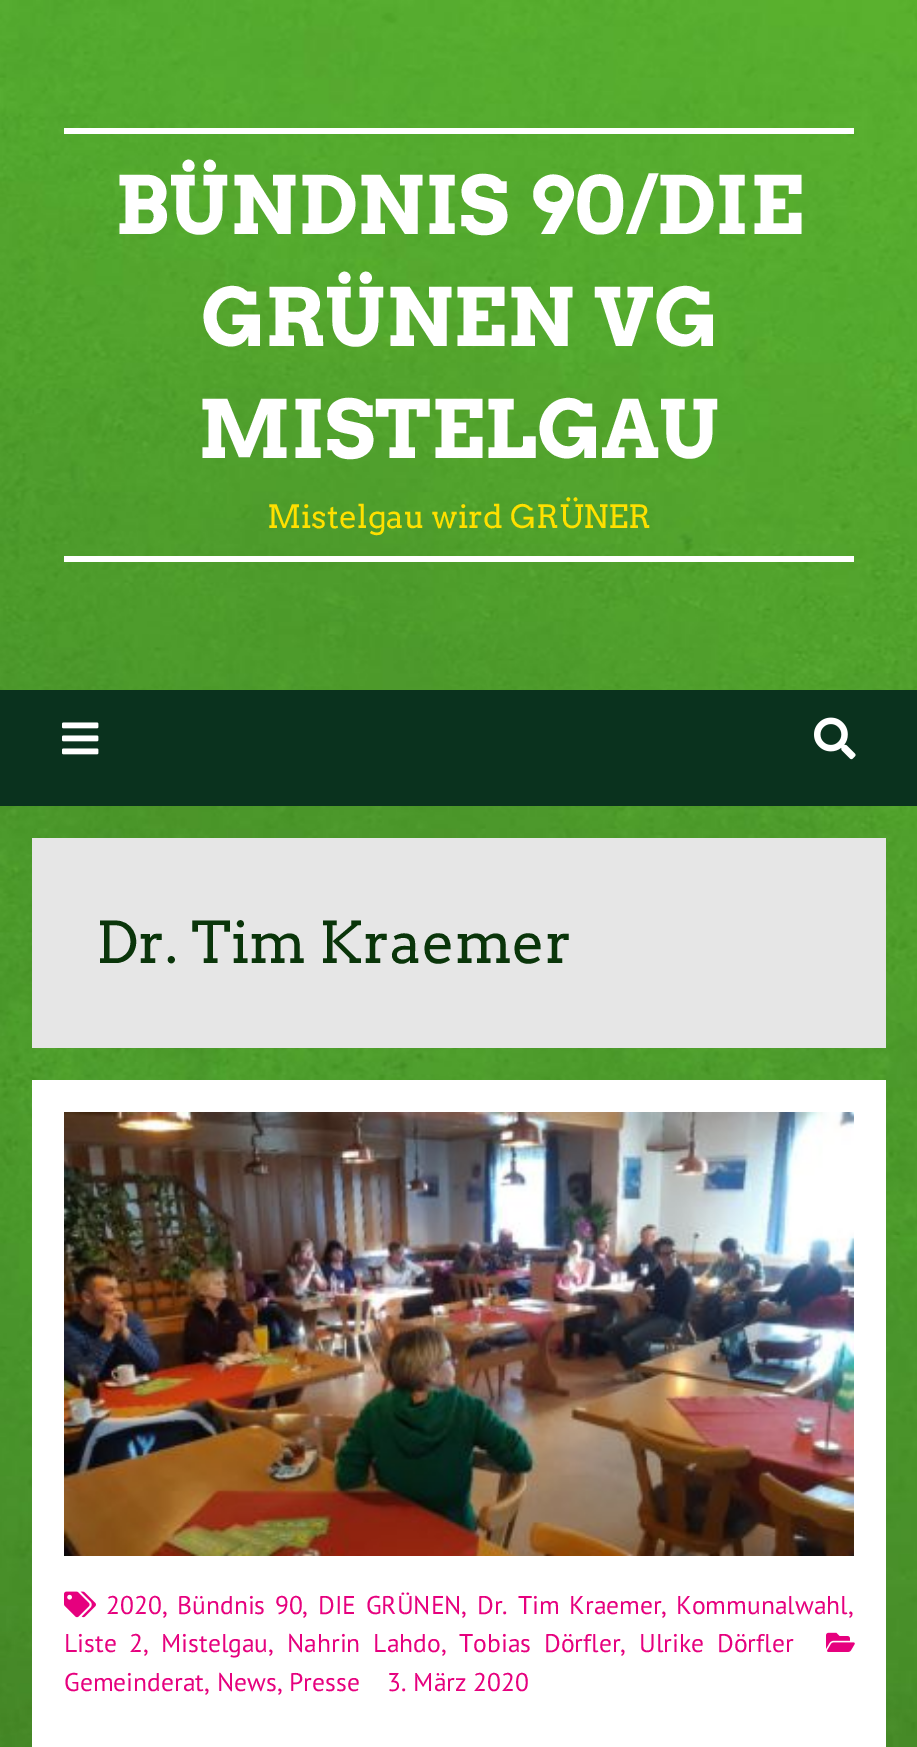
%!PS
<< /PageSize [917 1747] >> setpagedevice
/mt/moveto load def
/co { dup -16 bitshift 255 div exch dup -8 bitshift 255 and 255 div exch 255 and 255 div setrgbcolor } def
/fn { [ exch dup neg 0 0 3 -1 roll 0 0 ] selectfont } def
/tx { co fn moveto show } def
/bx { co rectfill } def
/im { 5 dict begin { /h /w /y /x /name } { exch def } forall
  gsave x y translate w h scale
  w h 8 [w 0 0 h 0 0] name (r) file false 3 colorimage grestore end } def
0 1747 translate 1 -1 scale
4 setmiterlimit
0 0 917 1747 16#FFFFFF bx
(media/1.raw) 0 0 917 1747 im
64 128 790 6 16#FFFFFF bx
64 556 790 6 16#FFFFFF bx
0 690 917 116 16#0A321E bx
(media/2.raw) 62 722 37 33 im
(media/3.raw) 814 717 42 43 im
32 838 854 210 16#E6E6E6 bx
32 1080 854 667 16#FFFFFF bx
(media/4.raw) 64 1112 790 444 im
(media/5.raw) 64 1591 32 27 im
(media/6.raw) 826 1632 29 20 im
(BÜNDNIS 90/DIE) 115 234 /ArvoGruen-Regular 80 16#FFFFFF tx
(GRÜNEN VG) 201 346 /ArvoGruen-Regular 80 16#FFFFFF tx
(MISTELGAU) 198 458 /ArvoGruen-Regular 80 16#FFFFFF tx
(Mistelgau wird GRÜNER) 267 528 /Arvo-Regular 32 16#FFE000 tx
(Dr. Tim Kraemer) 96 963 /Arvo-Regular 57.5 16#0A350A tx
(2020,) 106 1614 /PTSans-Regular 25.6 16#E6007E tx
177 1614 mt 3 0 32 (Bündnis 90) widthshow
(,) 302 1614 /PTSans-Regular 25.6 16#E6007E tx
318 1614 mt 3 0 32 (DIE GRÜNEN) widthshow
(,) 461 1614 /PTSans-Regular 25.6 16#E6007E tx
477 1614 mt 3 0 32 (Dr. Tim Kraemer) widthshow
(,) 661 1614 /PTSans-Regular 25.6 16#E6007E tx
(Kommunalwahl,) 676 1614 /PTSans-Regular 25.6 16#E6007E tx
64 1652 mt 6 0 32 (Liste 2) widthshow
(,) 143 1652 /PTSans-Regular 25.6 16#E6007E tx
(Mistelgau,) 161 1652 /PTSans-Regular 25.6 16#E6007E tx
287 1652 mt 6 0 32 (Nahrin Lahdo) widthshow
(,) 441 1652 /PTSans-Regular 25.6 16#E6007E tx
459 1652 mt 6 0 32 (Tobias Dörfler) widthshow
(,) 620 1652 /PTSans-Regular 25.6 16#E6007E tx
639 1652 mt 6 0 32 (Ulrike Dörfler) widthshow
(Gemeinderat, News, Presse) 64 1691 /PTSans-Regular 25.6 16#E6007E tx
(3. März 2020) 387 1691 /PTSans-Regular 25.6 16#E6007E tx
showpage
